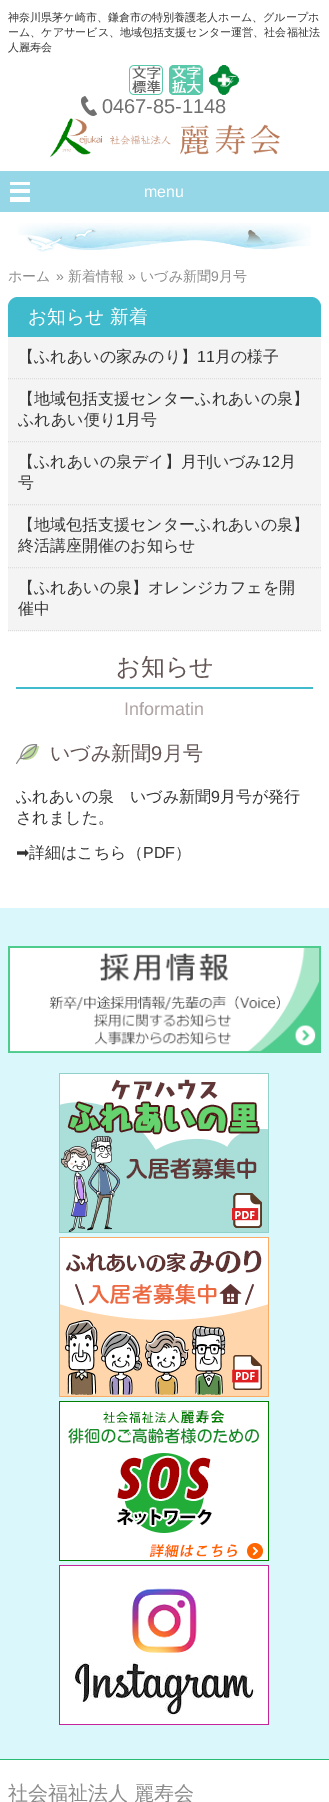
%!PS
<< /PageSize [329 1802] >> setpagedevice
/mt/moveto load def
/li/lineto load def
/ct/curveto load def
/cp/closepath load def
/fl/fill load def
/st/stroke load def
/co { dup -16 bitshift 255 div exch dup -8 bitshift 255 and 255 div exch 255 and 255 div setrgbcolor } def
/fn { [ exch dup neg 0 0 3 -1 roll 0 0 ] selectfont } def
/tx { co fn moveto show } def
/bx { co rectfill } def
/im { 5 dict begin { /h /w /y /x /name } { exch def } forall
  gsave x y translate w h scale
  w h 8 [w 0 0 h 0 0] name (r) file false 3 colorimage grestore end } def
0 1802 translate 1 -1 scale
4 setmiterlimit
0 0 329 1802 16#FFFFFF bx
(media/1.raw) 129 65 34 30 im
(media/2.raw) 169 65 34 30 im
(media/3.raw) 209 65 30 30 im
(media/4.raw) 81 96 16 20 im
(media/5.raw) 50 118 230 39 im
0 171 329 41 16#95D6E7 bx
10 182 20 20 16#FFFFFF bx
10 185 20 4 16#95D6E7 bx
10 193 20 4 16#95D6E7 bx
(media/6.raw) 18 223 293 29 im
16#40BBCD co
18 297 mt 311 297 li 316.5 297 321 301.5 321 307 ct 321 337 li 8 337 li 8 307 li 8 301.5 12.5 297 18 297 ct cp fl
8 337 313 294 16#F4F4F4 bx
16#DDDDDD co
[1 1] 0 setdash
8 378.5 mt 321 378.5 li st
8 441.5 mt 321 441.5 li st
8 504.5 mt 321 504.5 li st
8 567.5 mt 321 567.5 li st
8 630.5 mt 321 630.5 li st
16 687 297 2 16#40BBCD bx
(media/7.raw) 16 744 23 20 im
0 908 329 851 16#DAF7FC bx
(media/8.raw) 8 946 313 107 im
(media/9.raw) 59 1073 210 160 im
(media/10.raw) 59 1237 210 160 im
(media/11.raw) 59 1401 210 160 im
(media/12.raw) 59 1565 210 160 im
0 1759 329 1 16#26BC73 bx
(神奈川県茅ケ崎市、鎌倉市の特別養護老人ホーム、グループホ) 8 21 /WenQuanYiZenHei-Medium 11.05 16#343434 tx
(ーム、ケアサービス、地域包括支援センター運営、社会福祉法) 8 36 /WenQuanYiZenHei-Medium 11.05 16#343434 tx
(人麗寿会) 8 51 /WenQuanYiZenHei-Medium 11.05 16#343434 tx
(0467-85-1148) 102 113 /LiberationSans-Regular 20 16#707070 tx
(menu) 144 197 /LiberationSans-Regular 16 16#FFFFFF tx
(ホーム) 8 281 /WenQuanYiZenHei-Medium 14 16#8C8C8C tx
(») 56 281 /LiberationSans-Regular 14 16#8C8C8C tx
(新着情報) 68 281 /WenQuanYiZenHei-Medium 14 16#8C8C8C tx
(») 128 281 /LiberationSans-Regular 14 16#8C8C8C tx
(いづみ新聞) 140 281 /WenQuanYiZenHei-Medium 14 16#8C8C8C tx
(9) 211 281 /LiberationSans-Regular 14 16#8C8C8C tx
(月号) 219 281 /WenQuanYiZenHei-Medium 14 16#8C8C8C tx
(お知らせ 新着) 28 323 /WenQuanYiZenHei-Medium 18.75 16#FFFFFF tx
(【ふれあいの家みのり】) 18 362 /WenQuanYiZenHei-Medium 16 16#343434 tx
(11) 197 362 /LiberationSans-Regular 16 16#343434 tx
(月の様子) 215 362 /WenQuanYiZenHei-Medium 16 16#343434 tx
(【地域包括支援センターふれあいの泉】) 18 404 /WenQuanYiZenHei-Medium 16 16#343434 tx
(ふれあい便り) 18 425 /WenQuanYiZenHei-Medium 16 16#343434 tx
(1) 116 425 /LiberationSans-Regular 16 16#343434 tx
(月号) 125 425 /WenQuanYiZenHei-Medium 16 16#343434 tx
(【ふれあいの泉デイ】月刊いづみ) 18 467 /WenQuanYiZenHei-Medium 16 16#343434 tx
(12) 262 467 /LiberationSans-Regular 16 16#343434 tx
(月) 280 467 /WenQuanYiZenHei-Medium 16 16#343434 tx
(号) 18 488 /WenQuanYiZenHei-Medium 16 16#343434 tx
(【地域包括支援センターふれあいの泉】) 18 530 /WenQuanYiZenHei-Medium 16 16#343434 tx
(終活講座開催のお知らせ) 18 551 /WenQuanYiZenHei-Medium 16 16#343434 tx
(【ふれあいの泉】オレンジカフェを開) 18 593 /WenQuanYiZenHei-Medium 16 16#343434 tx
(催中) 18 614 /WenQuanYiZenHei-Medium 16 16#343434 tx
(お知らせ) 116 675 /WenQuanYiZenHei-Medium 24 16#645555 tx
(Informatin) 124 715 /LiberationSans-Regular 18 16#ACA1A1 tx
(いづみ新聞) 50 760 /WenQuanYiZenHei-Medium 20 16#645555 tx
(9) 151 760 /LiberationSans-Regular 20 16#645555 tx
(月号) 163 760 /WenQuanYiZenHei-Medium 20 16#645555 tx
(ふれあいの泉　いづみ新聞) 16 802 /WenQuanYiZenHei-Medium 16 16#343434 tx
(9) 211 802 /LiberationSans-Regular 16 16#343434 tx
(月号が発行) 220 802 /WenQuanYiZenHei-Medium 16 16#343434 tx
(されました。) 16 823 /WenQuanYiZenHei-Medium 16 16#343434 tx
(➡) 16 858 /DejaVuSans-Regular 16 16#343434 tx
(詳細はこちら（) 29 858 /WenQuanYiZenHei-Medium 16 16#343434 tx
(PDF) 143 858 /LiberationSans-Regular 16 16#343434 tx
(）) 175 858 /WenQuanYiZenHei-Medium 16 16#343434 tx
(社会福祉法人 麗寿会) 8 1800 /WenQuanYiZenHei-Medium 20 16#8C8C8C tx
showpage
